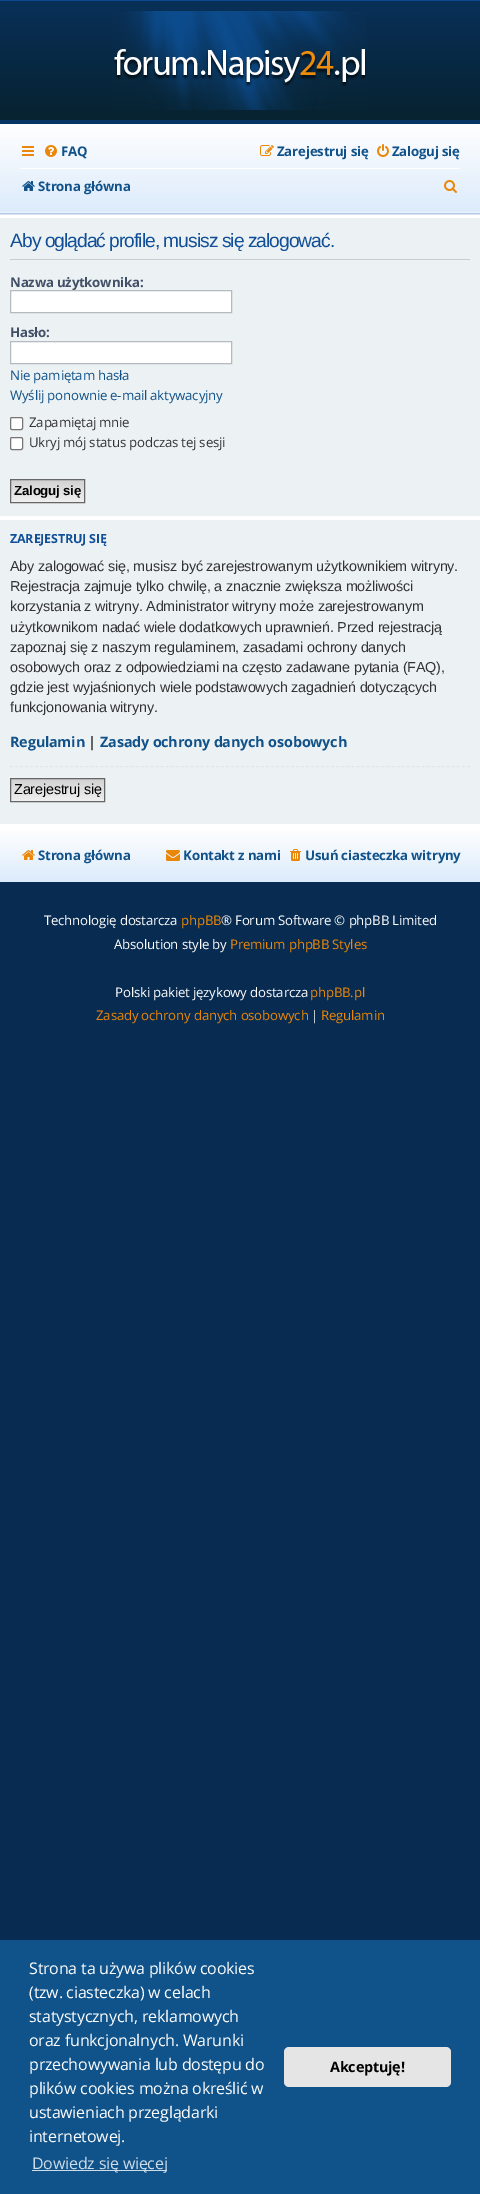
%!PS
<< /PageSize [480 2194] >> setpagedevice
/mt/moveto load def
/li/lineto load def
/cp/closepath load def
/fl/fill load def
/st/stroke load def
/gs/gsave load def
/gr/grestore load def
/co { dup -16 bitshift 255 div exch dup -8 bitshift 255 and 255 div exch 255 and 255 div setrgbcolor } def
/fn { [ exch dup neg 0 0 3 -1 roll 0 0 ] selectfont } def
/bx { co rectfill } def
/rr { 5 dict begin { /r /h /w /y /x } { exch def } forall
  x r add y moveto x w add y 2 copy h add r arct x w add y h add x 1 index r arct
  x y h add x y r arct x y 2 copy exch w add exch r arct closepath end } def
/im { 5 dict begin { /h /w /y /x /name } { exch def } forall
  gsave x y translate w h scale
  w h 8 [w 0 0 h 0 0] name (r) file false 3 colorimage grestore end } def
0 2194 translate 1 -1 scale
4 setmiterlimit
0 0 480 2194 16#082B51 bx
0 215 480 613 16#FFFFFF bx
gs 0 1 mt 480 1 li 480 120 li 0 120 li cp clip newpath
<< /ShadingType 2 /ColorSpace /DeviceRGB /Coords [240 124 240 1] /Extend [true true] /Function << /FunctionType 2 /Domain [0 1] /C0 [.027 .133 .184] /C1 [.035 .188 .345] /N 1 >> >> shfill gr
0 0 480 1 16#0A498E bx
(media/1.raw) 113 11 254 99 im
0 214 480 1 16#D9E6F1 bx
gs 0 124 mt 480 124 li 480 212 li 0 212 li cp clip newpath
<< /ShadingType 2 /ColorSpace /DeviceRGB /Coords [240 213 240 124] /Extend [true true] /Function << /FunctionType 2 /Domain [0 1] /C0 [.863 .922 .984] /C1 [1 1 1] /N 1 >> >> shfill gr
0 212 480 1 16#E7F1FC bx
0 120 480 4 16#063465 bx
0 213 480 1 16#B3CCE4 bx
(media/2.raw) 22 146 12 10 im
(media/3.raw) 45 145 12 12 im
(media/4.raw) 260 145 14 11 im
(media/5.raw) 377 144 12 13 im
20 168 440 1 16#FFFFFF bx
(media/6.raw) 22 181 13 10 im
(media/7.raw) 444 180 13 13 im
0 218 480 298 16#ECF1F3 bx
10 259 460 1 16#CCCCCC bx
16#FFFFFF co
10.5 341.5 mt 231.5 341.5 li 231.5 363.5 li 10.5 363.5 li cp gs fl gr
16#B4BAC0 co
st
16#FFFFFF co
10.5 417.5 12 12 1.5 rr gs fl gr
16#767676 co
st
16#FFFFFF co
10.5 437.5 12 12 1.5 rr gs fl gr
16#767676 co
st
gs 11 480 mt 84 480 li 84 502 li 11 502 li cp clip newpath
<< /ShadingType 2 /ColorSpace /DeviceRGB /Coords [48 480 48 502] /Extend [true true] /Function << /FunctionType 2 /Domain [0 1] /C0 [.824 .824 .824] /C1 [.937 .937 .937] /N 1 >> >> shfill gr
16#666666 co
10.5 479.5 74 23 rectstroke
0 520 480 304 16#ECF1F3 bx
16#E2E6E7 co
[3 2.02] 0 setdash
10 766.5 mt 470 766.5 li st
gs 11 779 mt 104 779 li 104 801 li 11 801 li cp clip newpath
<< /ShadingType 2 /ColorSpace /DeviceRGB /Coords [58 779 58 801] /Extend [true true] /Function << /FunctionType 2 /Domain [0 1] /C0 [.824 .824 .824] /C1 [.937 .937 .937] /N 1 >> >> shfill gr
16#666666 co
[] 0 setdash
10.5 778.5 94 23 rectstroke
gs 0 828 mt 480 828 li 480 882 li 0 882 li cp clip newpath
<< /ShadingType 2 /ColorSpace /DeviceRGB /Coords [240 882 240 828] /Extend [true true] /Function << /FunctionType 2 /Domain [0 1] /C0 [.863 .922 .984] /C1 [1 1 1] /N 1 >> >> shfill gr
(media/8.raw) 22 850 13 10 im
(media/9.raw) 166 850 14 11 im
(media/10.raw) 290 849 11 12 im
0 1940 480 254 16#0F538A bx
32 2170 135 1 16#CFDDE8 bx
16#E5E5E5 co
284 2047 167 40 5 rr fl
/OpenSans-Bold 13.25 fn
16#105289 co
61 156 mt -.2 0 (FAQ) ashow
277 156 mt -.2 0 (Zarejestruj się) ashow
392 156 mt -.2 0 (Zaloguj się) ashow
38 191 mt -.2 0 (Strona główna) ashow
/LiberationSans-Regular 19.25 fn
16#115098 co
10 247 mt -1 0 (Aby oglądać profile, musisz się zalogować.) ashow
/OpenSans-Bold 13.25 fn
16#425067 co
10 287 mt -.2 0 (Nazwa użytkownika:) ashow
16#FFFFFF co
10.5 290.5 mt 231.5 290.5 li 231.5 312.5 li 10.5 312.5 li cp gs fl gr
16#B4BAC0 co
st
16#425067 co
10 337 mt -.2 0 (Hasło:) ashow
/OpenSans-Regular 13.25 fn
16#105289 co
10 380 mt -.2 0 (Nie pamiętam hasła) ashow
10 400 mt -.2 0 (Wyślij ponownie e-mail aktywacyjny) ashow
16#333333 co
29 427 mt -.2 0 (Zapamiętaj mnie) ashow
29 447 mt -.2 0 (Ukryj mój status podczas tej sesji) ashow
/LiberationSans-Bold 13.25 fn
16#000000 co
14 495 mt -.2 0 (Zaloguj się) ashow
/OpenSans-Bold 12.5 fn
16#115098 co
10 543 mt -.2 0 (ZAREJESTRUJ SIĘ) ashow
/LiberationSans-Regular 14.4 fn
16#333333 co
10 571 mt -.2 0 (Aby zalogować się, musisz być zarejestrowanym użytkownikiem witryny.) ashow
10 591 mt -.2 0 (Rejestracja zajmuje tylko chwilę, a znacznie zwiększa możliwości) ashow
10 611 mt -.2 0 (korzystania z witryny. Administrator witryny może zarejestrowanym) ashow
10 632 mt -.2 0 (użytkownikom nadać wiele dodatkowych uprawnień. Przed rejestracją) ashow
10 652 mt -.2 0 (zapoznaj się z naszym regulaminem, zasadami ochrony danych) ashow
10 672 mt -.2 0 (osobowych oraz z odpowiedziami na często zadawane pytania \(FAQ\),) ashow
10 692 mt -.2 0 (gdzie jest wyjaśnionych wiele podstawowych zagadnień dotyczących) ashow
10 712 mt -.2 0 (funkcjonowania witryny.) ashow
/OpenSans-Bold 14.4 fn
16#105289 co
10 747 mt -.2 0 (Regulamin) ashow
16#333333 co
88 747 mt -.2 0 (|) ashow
16#105289 co
100 747 mt -.2 0 (Zasady ochrony danych osobowych) ashow
/LiberationSans-Regular 14.4 fn
16#000000 co
14 794 mt -.2 0 (Zarejestruj się) ashow
/OpenSans-Bold 13.25 fn
16#105289 co
38 860 mt -.2 0 (Strona główna) ashow
183 860 mt -.2 0 (Kontakt z nami) ashow
305 860 mt -.2 0 (Usuń ciasteczka witryny) ashow
/OpenSans-Regular 13.25 fn
16#FFFFFF co
44 925 mt -.2 0 (Technologię dostarcza) ashow
16#EA8708 co
181 925 mt -.2 0 (phpBB) ashow
16#FFFFFF co
221 925 mt -.2 0 (® Forum Software © phpBB Limited) ashow
114 949 mt -.2 0 (Absolution style by) ashow
16#EA8708 co
230 949 mt -.2 0 (Premium phpBB Styles) ashow
16#FFFFFF co
115 997 mt -.2 0 (Polski pakiet językowy dostarcza) ashow
16#EA8708 co
310 997 mt -.2 0 (phpBB.pl) ashow
96 1020 mt -.2 0 (Zasady ochrony danych osobowych) ashow
16#FFFFFF co
311 1020 mt -.2 0 (|) ashow
16#EA8708 co
321 1020 mt -.2 0 (Regulamin) ashow
/OpenSans-Regular 16 fn
16#FFFFFF co
29 1974 mt -.2 0 (Strona ta używa plików cookies) ashow
29 1998 mt -.2 0 (\(tzw. ciasteczka\) w celach) ashow
29 2022 mt -.2 0 (statystycznych, reklamowych) ashow
29 2046 mt -.2 0 (oraz funkcjonalnych. Warunki) ashow
29 2070 mt -.2 0 (przechowywania lub dostępu do) ashow
29 2094 mt -.2 0 (plików cookies można określić w) ashow
29 2118 mt -.2 0 (ustawieniach przeglądarki) ashow
29 2142 mt -.2 0 (internetowej.) ashow
16#CFDDE8 co
32 2169 mt -.2 0 (Dowiedz się więcej) ashow
/OpenSans-Bold 14.4 fn
16#000000 co
330 2072 mt -.2 0 (Akceptuję!) ashow
showpage
